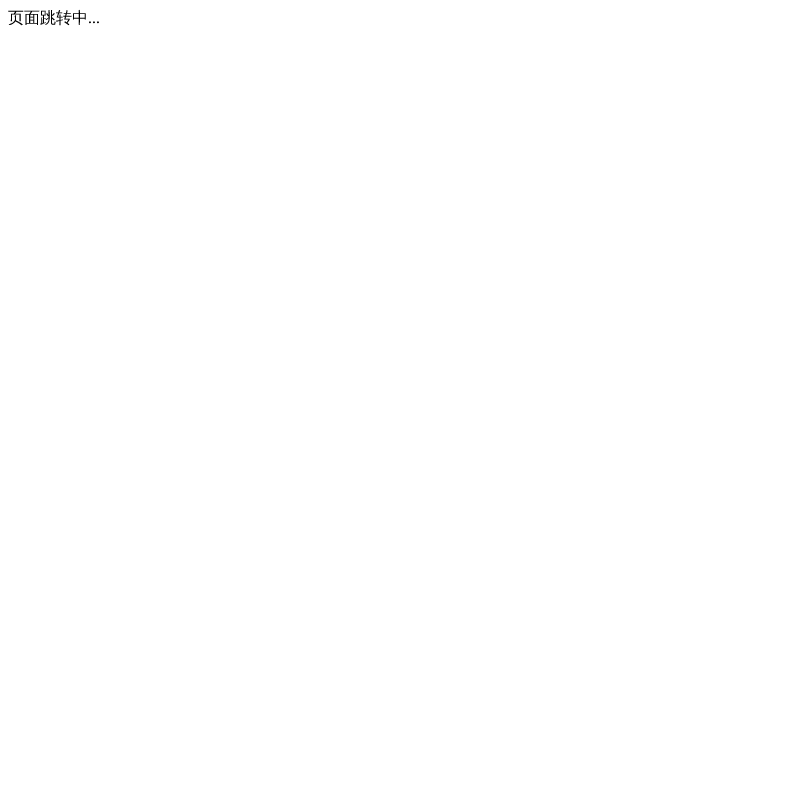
%!PS
<< /PageSize [785 808] >> setpagedevice
/co { dup -16 bitshift 255 div exch dup -8 bitshift 255 and 255 div exch 255 and 255 div setrgbcolor } def
/fn { [ exch dup neg 0 0 3 -1 roll 0 0 ] selectfont } def
/tx { co fn moveto show } def
/bx { co rectfill } def
0 808 translate 1 -1 scale
4 setmiterlimit
0 0 785 808 16#FFFFFF bx
(页面跳转中) 8 23 /WenQuanYiZenHei-Medium 16 16#000000 tx
(...) 88 23 /LiberationSerif-Regular 16 16#000000 tx
showpage
